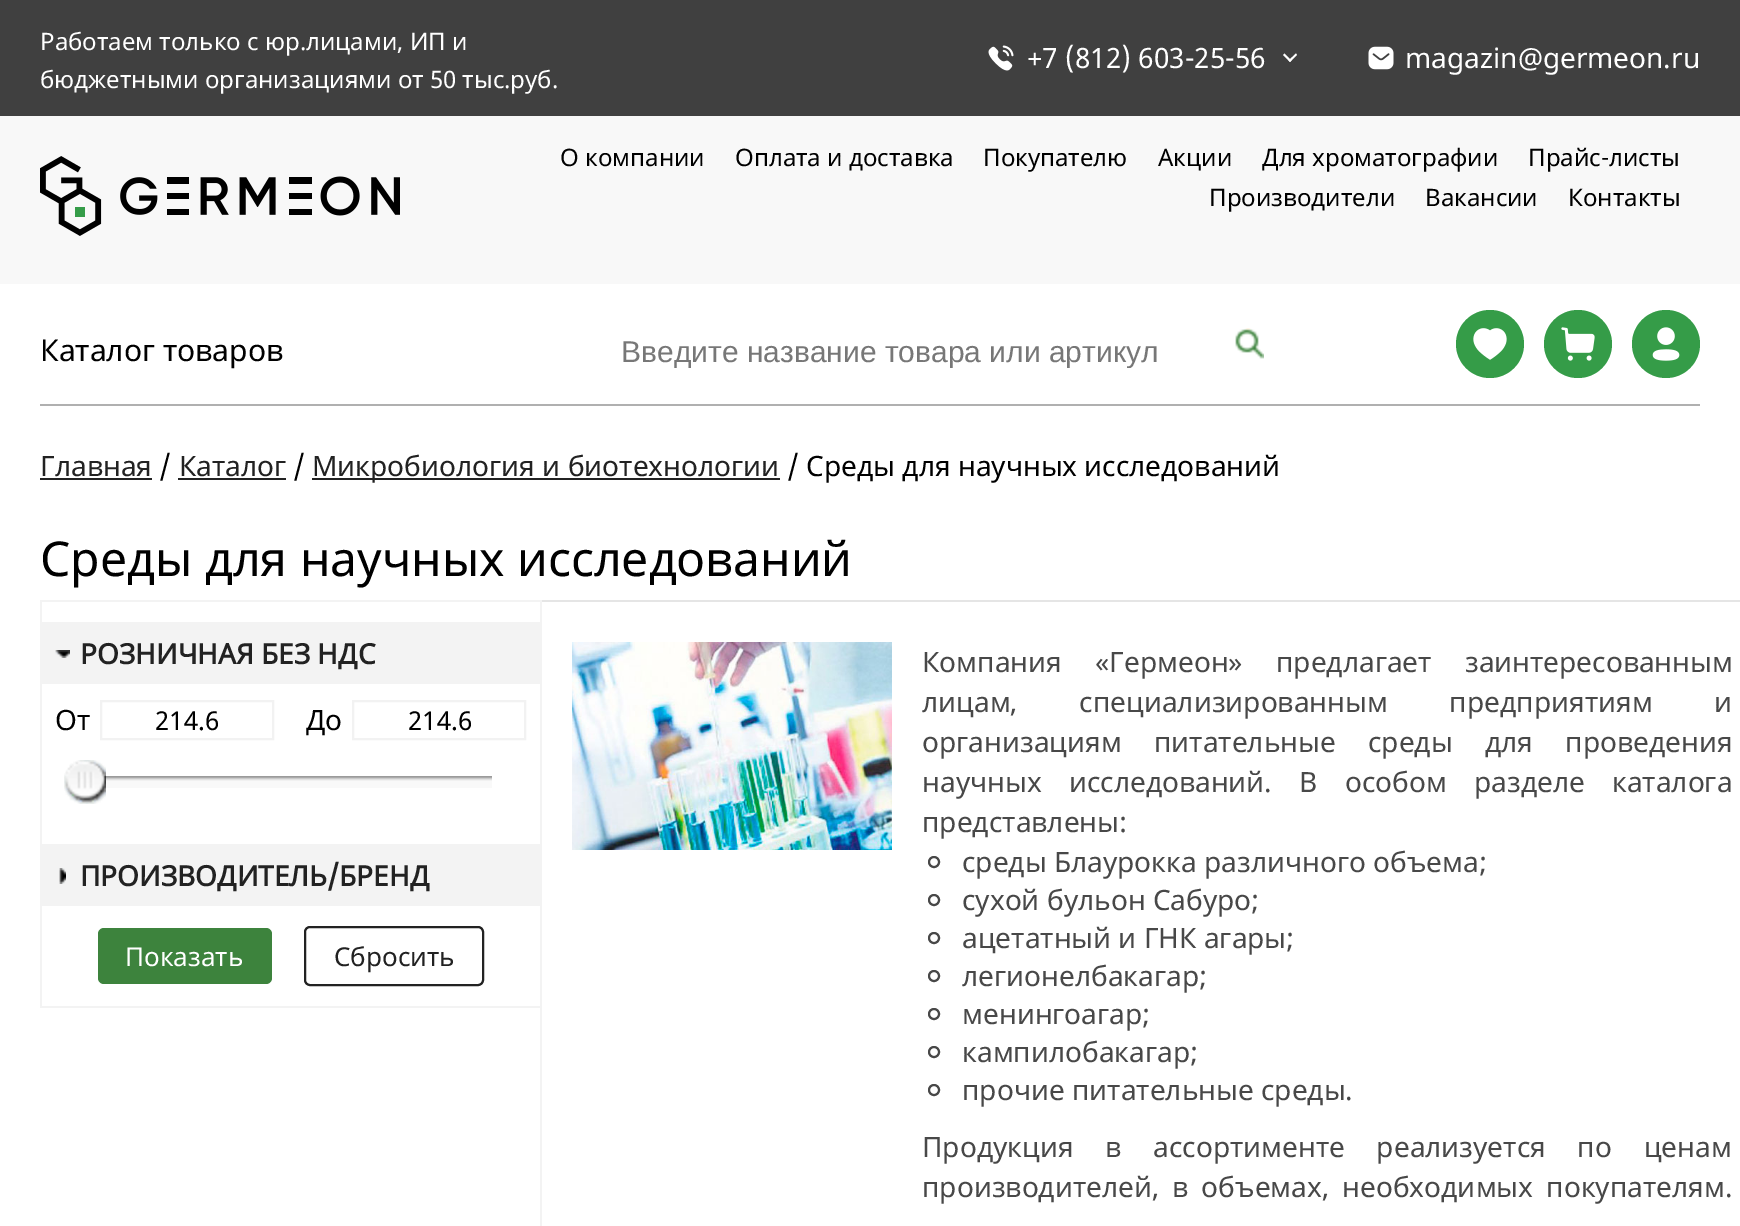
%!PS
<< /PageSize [1740 1226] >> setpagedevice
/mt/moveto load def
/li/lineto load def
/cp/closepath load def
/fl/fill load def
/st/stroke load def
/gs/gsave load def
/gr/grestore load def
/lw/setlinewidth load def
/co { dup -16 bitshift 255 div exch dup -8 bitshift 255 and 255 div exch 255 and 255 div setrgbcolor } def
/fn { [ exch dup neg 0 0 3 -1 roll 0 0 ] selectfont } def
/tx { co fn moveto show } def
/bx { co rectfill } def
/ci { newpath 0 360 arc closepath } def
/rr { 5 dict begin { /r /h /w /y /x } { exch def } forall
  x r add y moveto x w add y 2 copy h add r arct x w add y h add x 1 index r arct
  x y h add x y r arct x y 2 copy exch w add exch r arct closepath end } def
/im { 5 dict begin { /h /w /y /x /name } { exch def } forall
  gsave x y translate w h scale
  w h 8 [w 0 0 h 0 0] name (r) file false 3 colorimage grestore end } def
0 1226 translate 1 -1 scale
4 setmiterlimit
0 0 1740 1226 16#FFFFFF bx
0 0 1740 116 16#404040 bx
(media/1.raw) 988 45 26 26 im
16#FFFFFF co
1296 53.5 mt 1297 55 li 1290 62 li 1288.5 60.5 li cp fl
1284.5 53.5 mt 1291.5 60.5 li 1290 62 li 1283 55 li cp fl
(media/2.raw) 1368 46 26 24 im
0 116 1740 168 16#F8F8F8 bx
(media/3.raw) 40 156 360 80 im
40 404 1660 2 16#B0B0B0 bx
(media/4.raw) 1235 328 29 31 im
16#359C48 co
1490 344 34 ci fl
(media/5.raw) 1473 328 34 32 im
1578 344 34 ci fl
(media/6.raw) 1561 327 34 34 im
1666 344 34 ci fl
(media/7.raw) 1652 327 28 34 im
40 478 112 2 16#222222 bx
178 478 108 2 16#222222 bx
312 478 468 2 16#222222 bx
40 600 500 2 16#F3F3F3 bx
40 1006 500 2 16#F3F3F3 bx
40 600 2 408 16#F3F3F3 bx
42 622 498 62 16#F3F3F3 bx
(media/8.raw) 55 650 15 8 im
16#F2F2F2 co
2 lw
101 701 172 38 rectstroke
353 701 172 38 rectstroke
(media/9.raw) 100 776 392 12 im
(media/10.raw) 64 760 42 44 im
(media/11.raw) 64 760 42 44 im
42 844 498 62 16#F3F3F3 bx
(media/12.raw) 59 868 7 16 im
16#3D833D co
98 928 174 56 6 rr fl
16#222222 co
305 927 178 58 5 rr st
540 600 1200 2 16#E5E5E5 bx
540 600 2 626 16#F3F3F3 bx
(media/13.raw) 572 642 320 208 im
16#484848 co
934 862 5 ci st
934 900 5 ci st
934 938 5 ci st
934 976 5 ci st
934 1014 5 ci st
934 1052 5 ci st
934 1090 5 ci st
(Работаем только с юр.лицами, ИП и) 40 50 /NotoSans-Regular 24 16#FFFFFF tx
(бюджетными организациями от 50 тыс.руб.) 40 88 /NotoSans-Regular 24 16#FFFFFF tx
(+7 \(812\) 603-25-56) 1027 68 /NotoSans-Regular 28 16#FFFFFF tx
(magazin@germeon.ru) 1405 68 /NotoSans-Regular 28 16#FFFFFF tx
(О компании) 560 166 /NotoSans-Regular 24 16#000000 tx
(Оплата и доставка) 735 166 /NotoSans-Regular 24 16#000000 tx
(Покупателю) 983 166 /NotoSans-Regular 24 16#000000 tx
(Акции) 1158 166 /NotoSans-Regular 24 16#000000 tx
(Для хроматографии) 1262 166 /NotoSans-Regular 24 16#000000 tx
(Прайс-листы) 1528 166 /NotoSans-Regular 24 16#000000 tx
(Производители) 1209 206 /NotoSans-Regular 24 16#000000 tx
(Вакансии) 1425 206 /NotoSans-Regular 24 16#000000 tx
(Контакты) 1568 206 /NotoSans-Regular 24 16#000000 tx
(Каталог товаров) 40 361 /NotoSans-Regular 30 16#000000 tx
gs
622 334 592 34 rectclip
(Введите название товара или артикул) 621 362 /LiberationSans-Regular 30 16#777777 tx
gr
(Главная) 40 476 /NotoSans-Regular 28 16#222222 tx
(/) 159 476 /NotoSans-Regular 28 16#000000 tx
(Каталог) 179 476 /NotoSans-Regular 28 16#222222 tx
(/) 293 476 /NotoSans-Regular 28 16#000000 tx
(Микробиология и биотехнологии) 312 476 /NotoSans-Regular 28 16#222222 tx
(/ Среды для научных исследований) 787 476 /NotoSans-Regular 28 16#000000 tx
(Среды для научных исследований) 40 576 /NotoSans-Regular 48 16#000000 tx
(РОЗНИЧНАЯ БЕЗ НДС) 80 664 /NotoSans-Bold 28 16#222222 tx
(От) 55 730 /NotoSans-Regular 28 16#000000 tx
(214.6) 155 730 /NotoSans-Regular 26 16#000000 tx
(До) 306 730 /NotoSans-Regular 28 16#000000 tx
(214.6) 408 730 /NotoSans-Regular 26 16#000000 tx
(ПРОИЗВОДИТЕЛЬ/БРЕНД) 80 886 /NotoSans-Bold 28 16#222222 tx
(Показать) 125 966 /NotoSans-Regular 26 16#FFFFFF tx
(Сбросить) 334 966 /NotoSans-Regular 26 16#222222 tx
/NotoSans-Regular 28 fn
16#484848 co
922 672 mt 26 0 32 (Компания «Гермеон» предлагает заинтересованным) widthshow
922 712 mt 54.5 0 32 (лицам, специализированным предприятиям и) widthshow
922 752 mt 25 0 32 (организациям питательные среды для проведения) widthshow
922 792 mt 20 0 32 (научных исследований. В особом разделе каталога) widthshow
(представлены:) 922 832 /NotoSans-Regular 28 16#484848 tx
(среды Блаурокка различного объема;) 962 872 /NotoSans-Regular 28 16#484848 tx
(сухой бульон Сабуро;) 962 910 /NotoSans-Regular 28 16#484848 tx
(ацетатный и ГНК агары;) 962 948 /NotoSans-Regular 28 16#484848 tx
(легионелбакагар;) 962 986 /NotoSans-Regular 28 16#484848 tx
(менингоагар;) 962 1024 /NotoSans-Regular 28 16#484848 tx
(кампилобакагар;) 962 1062 /NotoSans-Regular 28 16#484848 tx
(прочие питательные среды.) 962 1100 /NotoSans-Regular 28 16#484848 tx
922 1157 mt 24.5 0 32 (Продукция в ассортименте реализуется по ценам) widthshow
922 1197 mt 6 0 32 (производителей, в объемах, необходимых покупателям.) widthshow
showpage
